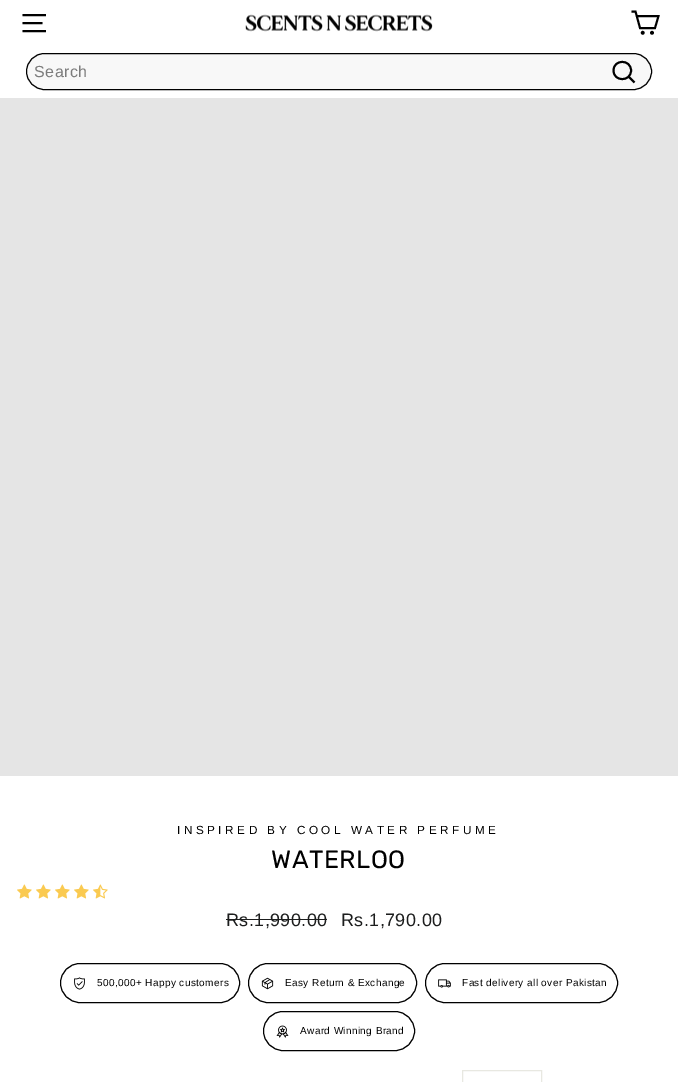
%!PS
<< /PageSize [678 1082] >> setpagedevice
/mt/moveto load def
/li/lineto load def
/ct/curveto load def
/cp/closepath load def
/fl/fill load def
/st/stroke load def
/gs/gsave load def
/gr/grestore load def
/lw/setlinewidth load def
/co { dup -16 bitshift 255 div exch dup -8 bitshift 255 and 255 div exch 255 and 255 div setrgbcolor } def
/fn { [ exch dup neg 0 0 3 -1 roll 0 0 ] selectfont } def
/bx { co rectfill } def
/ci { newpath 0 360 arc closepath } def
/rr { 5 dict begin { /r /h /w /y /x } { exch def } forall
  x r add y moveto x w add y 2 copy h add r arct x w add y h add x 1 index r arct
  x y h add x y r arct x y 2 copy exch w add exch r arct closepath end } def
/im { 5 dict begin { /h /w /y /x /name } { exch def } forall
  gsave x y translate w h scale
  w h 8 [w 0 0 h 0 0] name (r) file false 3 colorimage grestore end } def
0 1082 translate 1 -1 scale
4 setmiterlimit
0 0 678 1082 16#FFFFFF bx
16#000000 co
1.9 lw
22.5 15 mt 46 15 li 22.5 23 mt 42.5 23 li 22.5 31 mt 46 31 li st
(media/1.raw) 245 14 188 18 im
636.5 16 mt 658.5 16 li 655 28 li 640 28 li 635.5 11.5 li 631.5 11.5 li st
642.7 32.8 .9 ci st
652 32.8 .9 ci st
16#F8F8F8 co
26.5 53.5 625 36 18 rr gs fl gr
16#000000 co
1 lw
st
1.9 lw
631 70.5 mt 631 82 613.5 82 613.5 70.5 ct 613.5 59 631 59 631 70.5 ct cp 634.5 82.5 mt 628.5 76.5 li st
0 98 678 678 16#E5E5E5 bx
(media/2.raw) 17 884 15 15 im
(media/2.raw) 36 884 15 15 im
(media/2.raw) 55 884 15 15 im
(media/2.raw) 74 884 15 15 im
(media/3.raw) 93 884 15 15 im
226 919 101 1 16#1C1D1D bx
16#000000 co
1 lw
60.5 963.5 179 39 19.5 rr st
(media/4.raw) 74 977 11 13 im
248.5 963.5 168 39 19.5 rr st
(media/5.raw) 261 977 13 13 im
425.5 963.5 192 39 19.5 rr st
(media/6.raw) 438 979 13 9 im
263.5 1011.5 151 39 19.5 rr st
(media/7.raw) 276 1025 13 13 im
16#E8E8E1 co
462.5 1070.5 79 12 rectstroke
/Arimo-Regular 16 fn
16#7C7C7C co
34 77 mt .5 0 (Search) ashow
/Arimo-Regular 11.75 fn
16#000000 co
177 834 mt 3.5 0 (INSPIRED BY COOL WATER PERFUME) ashow
/Rubik-Regular 25 fn
271 868 mt .5 0 (WATERLOO) ashow
/Arimo-Regular 18 fn
16#1C1D1D co
226 926 mt .4 0 (Rs.1,990.00) ashow
341 926 mt .4 0 (Rs.1,790.00) ashow
/Arimo-Regular 10 fn
16#000000 co
97 986 mt .4 0 (500,000+ Happy customers) ashow
285 986 mt .4 0 (Easy Return & Exchange) ashow
462 986 mt .4 0 (Fast delivery all over Pakistan) ashow
300 1034 mt .4 0 (Award Winning Brand) ashow
showpage
